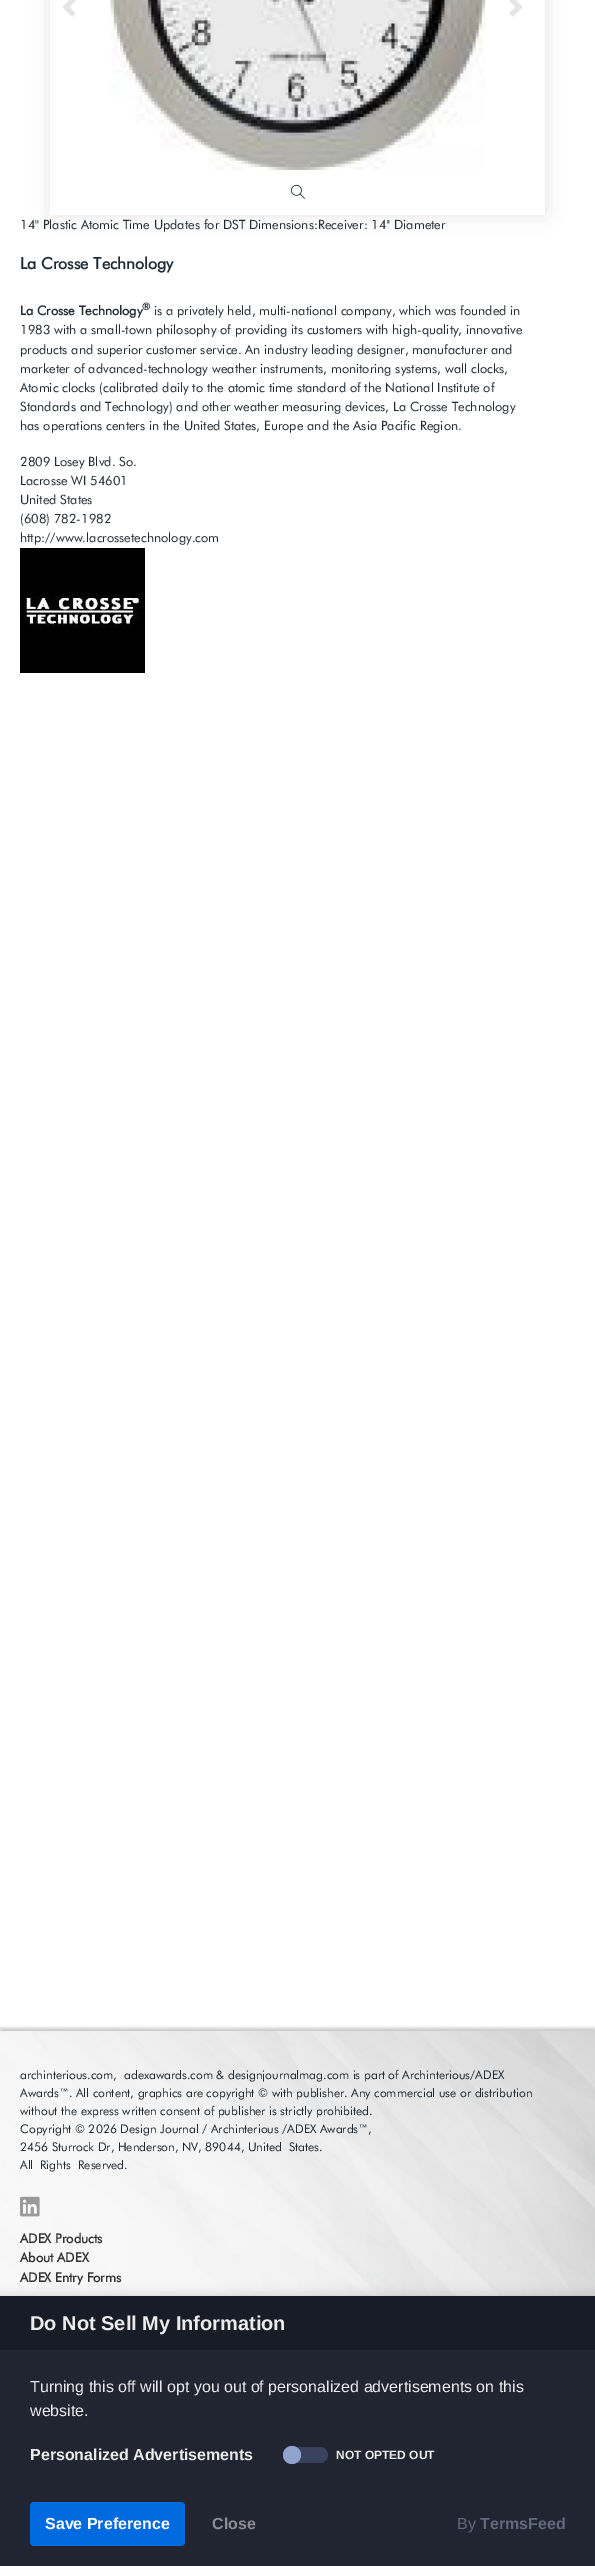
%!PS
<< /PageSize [595 2566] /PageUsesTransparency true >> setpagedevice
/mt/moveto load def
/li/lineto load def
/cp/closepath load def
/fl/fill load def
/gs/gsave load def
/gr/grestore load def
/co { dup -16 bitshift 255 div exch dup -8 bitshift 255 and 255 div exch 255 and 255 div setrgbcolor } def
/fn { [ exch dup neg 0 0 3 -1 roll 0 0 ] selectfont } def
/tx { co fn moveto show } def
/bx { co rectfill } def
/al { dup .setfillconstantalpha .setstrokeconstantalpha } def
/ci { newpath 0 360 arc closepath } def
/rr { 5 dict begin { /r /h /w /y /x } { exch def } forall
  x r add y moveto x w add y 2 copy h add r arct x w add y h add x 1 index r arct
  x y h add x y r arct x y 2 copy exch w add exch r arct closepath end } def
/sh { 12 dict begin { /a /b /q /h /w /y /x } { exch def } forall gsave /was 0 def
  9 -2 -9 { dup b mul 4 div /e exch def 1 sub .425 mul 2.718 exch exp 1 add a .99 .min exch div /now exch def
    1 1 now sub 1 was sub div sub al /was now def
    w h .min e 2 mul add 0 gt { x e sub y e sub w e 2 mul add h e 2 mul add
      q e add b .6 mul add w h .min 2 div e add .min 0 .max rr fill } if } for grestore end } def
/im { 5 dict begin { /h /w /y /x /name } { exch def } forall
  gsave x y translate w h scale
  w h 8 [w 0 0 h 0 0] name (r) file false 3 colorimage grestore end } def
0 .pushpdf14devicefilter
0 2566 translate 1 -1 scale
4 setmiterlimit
0 0 595 2566 16#FFFFFF bx
gs
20 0 mt 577 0 li 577 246 li 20 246 li cp 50 -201 mt 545 -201 li 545 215 li 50 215 li cp eoclip newpath
16#000000 co
51 -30 495 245 0 10 .1 sh
gr
(media/1.raw) 110 0 376 170 im
(media/2.raw) 291 184 14 15 im
(media/3.raw) 62 0 14 17 im
(media/4.raw) 509 0 14 17 im
(media/5.raw) 20 548 125 125 im
16#000000 co
0 2028 595 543 0 1.5 .2 sh
(media/6.raw) 0 2031 595 265 im
(media/7.raw) 20 2196 20 21 im
0 2296 595 270 0 6 .16 sh
0 2350 595 216 16#212531 bx
0 2296 595 54 16#181C27 bx
16#38425E co
283 2447 45 16 8 rr fl
16#8FA3CC co
292 2455 9 ci fl
16#006ADE co
30 2502 155 44 4 rr fl
(14'' Plastic Atomic Time Updates for DST Dimensions:Receiver: 14'' Diameter) 20 229 /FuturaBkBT-Regular 12.8 16#1F2B34 tx
(La Crosse Technology) 20 269 /FuturaBkBT-Bold 16 16#1F2B34 tx
(La Crosse Technology) 20 315 /FuturaBkBT-Bold 12.8 16#1F2B34 tx
(®) 142 310 /FuturaBkBT-Bold 10 16#1F2B34 tx
(is a privately held, multi-national company, which was founded in) 154 315 /FuturaBkBT-Regular 12.8 16#1F2B34 tx
(1983 with a small-town philosophy of providing its customers with high-quality, innovative) 20 334 /FuturaBkBT-Regular 12.8 16#1F2B34 tx
(products and superior customer service. An industry leading designer, manufacturer and) 20 354 /FuturaBkBT-Regular 12.8 16#1F2B34 tx
(marketer of advanced-technology weather instruments, monitoring systems, wall clocks,) 20 373 /FuturaBkBT-Regular 12.8 16#1F2B34 tx
(Atomic clocks \(calibrated daily to the atomic time standard of the National Institute of) 20 392 /FuturaBkBT-Regular 12.8 16#1F2B34 tx
(Standards and Technology\) and other weather measuring devices, La Crosse Technology) 20 411 /FuturaBkBT-Regular 12.8 16#1F2B34 tx
(has operations centers in the United States, Europe and the Asia Pacific Region.) 20 430 /FuturaBkBT-Regular 12.8 16#1F2B34 tx
(2809 Losey Blvd. So.) 20 466 /FuturaBkBT-Regular 12.8 16#1F2B34 tx
(Lacrosse WI 54601) 20 485 /FuturaBkBT-Regular 12.8 16#1F2B34 tx
(United States) 20 504 /FuturaBkBT-Regular 12.8 16#1F2B34 tx
(\(608\) 782-1982) 20 523 /FuturaBkBT-Regular 12.8 16#1F2B34 tx
(http://www.lacrossetechnology.com) 20 542 /FuturaBkBT-Regular 12.8 16#1F2B34 tx
(archinterious.com,) 20 2079 /FuturaBkBT-Regular 12 16#1F2B34 tx
(adexawards.com & designjournalmag.com is part of Archinterious/ADEX) 124 2079 /FuturaBkBT-Regular 12 16#1F2B34 tx
(Awards™. All content, graphics are copyright © with publisher. Any commercial use or distribution) 20 2097 /FuturaBkBT-Regular 12 16#1F2B34 tx
(without the express written consent of publisher is strictly prohibited.) 20 2115 /FuturaBkBT-Regular 12 16#1F2B34 tx
(Copyright © 2026 Design Journal / Archinterious /ADEX Awards™,) 20 2133 /FuturaBkBT-Regular 12 16#1F2B34 tx
(2456 Sturrock Dr, Henderson, NV, 89044, United) 20 2151 /FuturaBkBT-Regular 12 16#1F2B34 tx
(States.) 289 2151 /FuturaBkBT-Regular 12 16#1F2B34 tx
(All) 20 2169 /FuturaBkBT-Regular 12 16#1F2B34 tx
(Rights) 40 2169 /FuturaBkBT-Regular 12 16#1F2B34 tx
(Reserved.) 78 2169 /FuturaBkBT-Regular 12 16#1F2B34 tx
(ADEX Products) 20 2243 /FuturaBkBT-Bold 13 16#323232 tx
(About ADEX) 20 2262 /FuturaBkBT-Bold 13 16#323232 tx
(ADEX Entry Forms) 20 2282 /FuturaBkBT-Bold 13 16#323232 tx
(Do Not Sell My Information) 30 2330 /LiberationSans-Bold 20 16#EBEBEC tx
(Turning this off will opt you out of personalized advertisements on this) 30 2392 /LiberationSans-Regular 16 16#EBEBEC tx
(website.) 30 2416 /LiberationSans-Regular 16 16#EBEBEC tx
(Personalized Advertisements) 30 2460 /LiberationSans-Bold 16 16#EBEBEC tx
(NOT OPTED OUT) 336 2459 /LiberationSans-Bold 12 16#EBEBEC tx
(Save Preference) 45 2529 /LiberationSans-Bold 16 16#FFFFFF tx
(Close) 212 2529 /LiberationSans-Bold 16 16#8C8E93 tx
(By) 457 2529 /LiberationSans-Regular 16 16#61697E tx
(TermsFeed) 480 2529 /LiberationSans-Bold 16 16#61697E tx
.poppdf14devicefilter showpage
